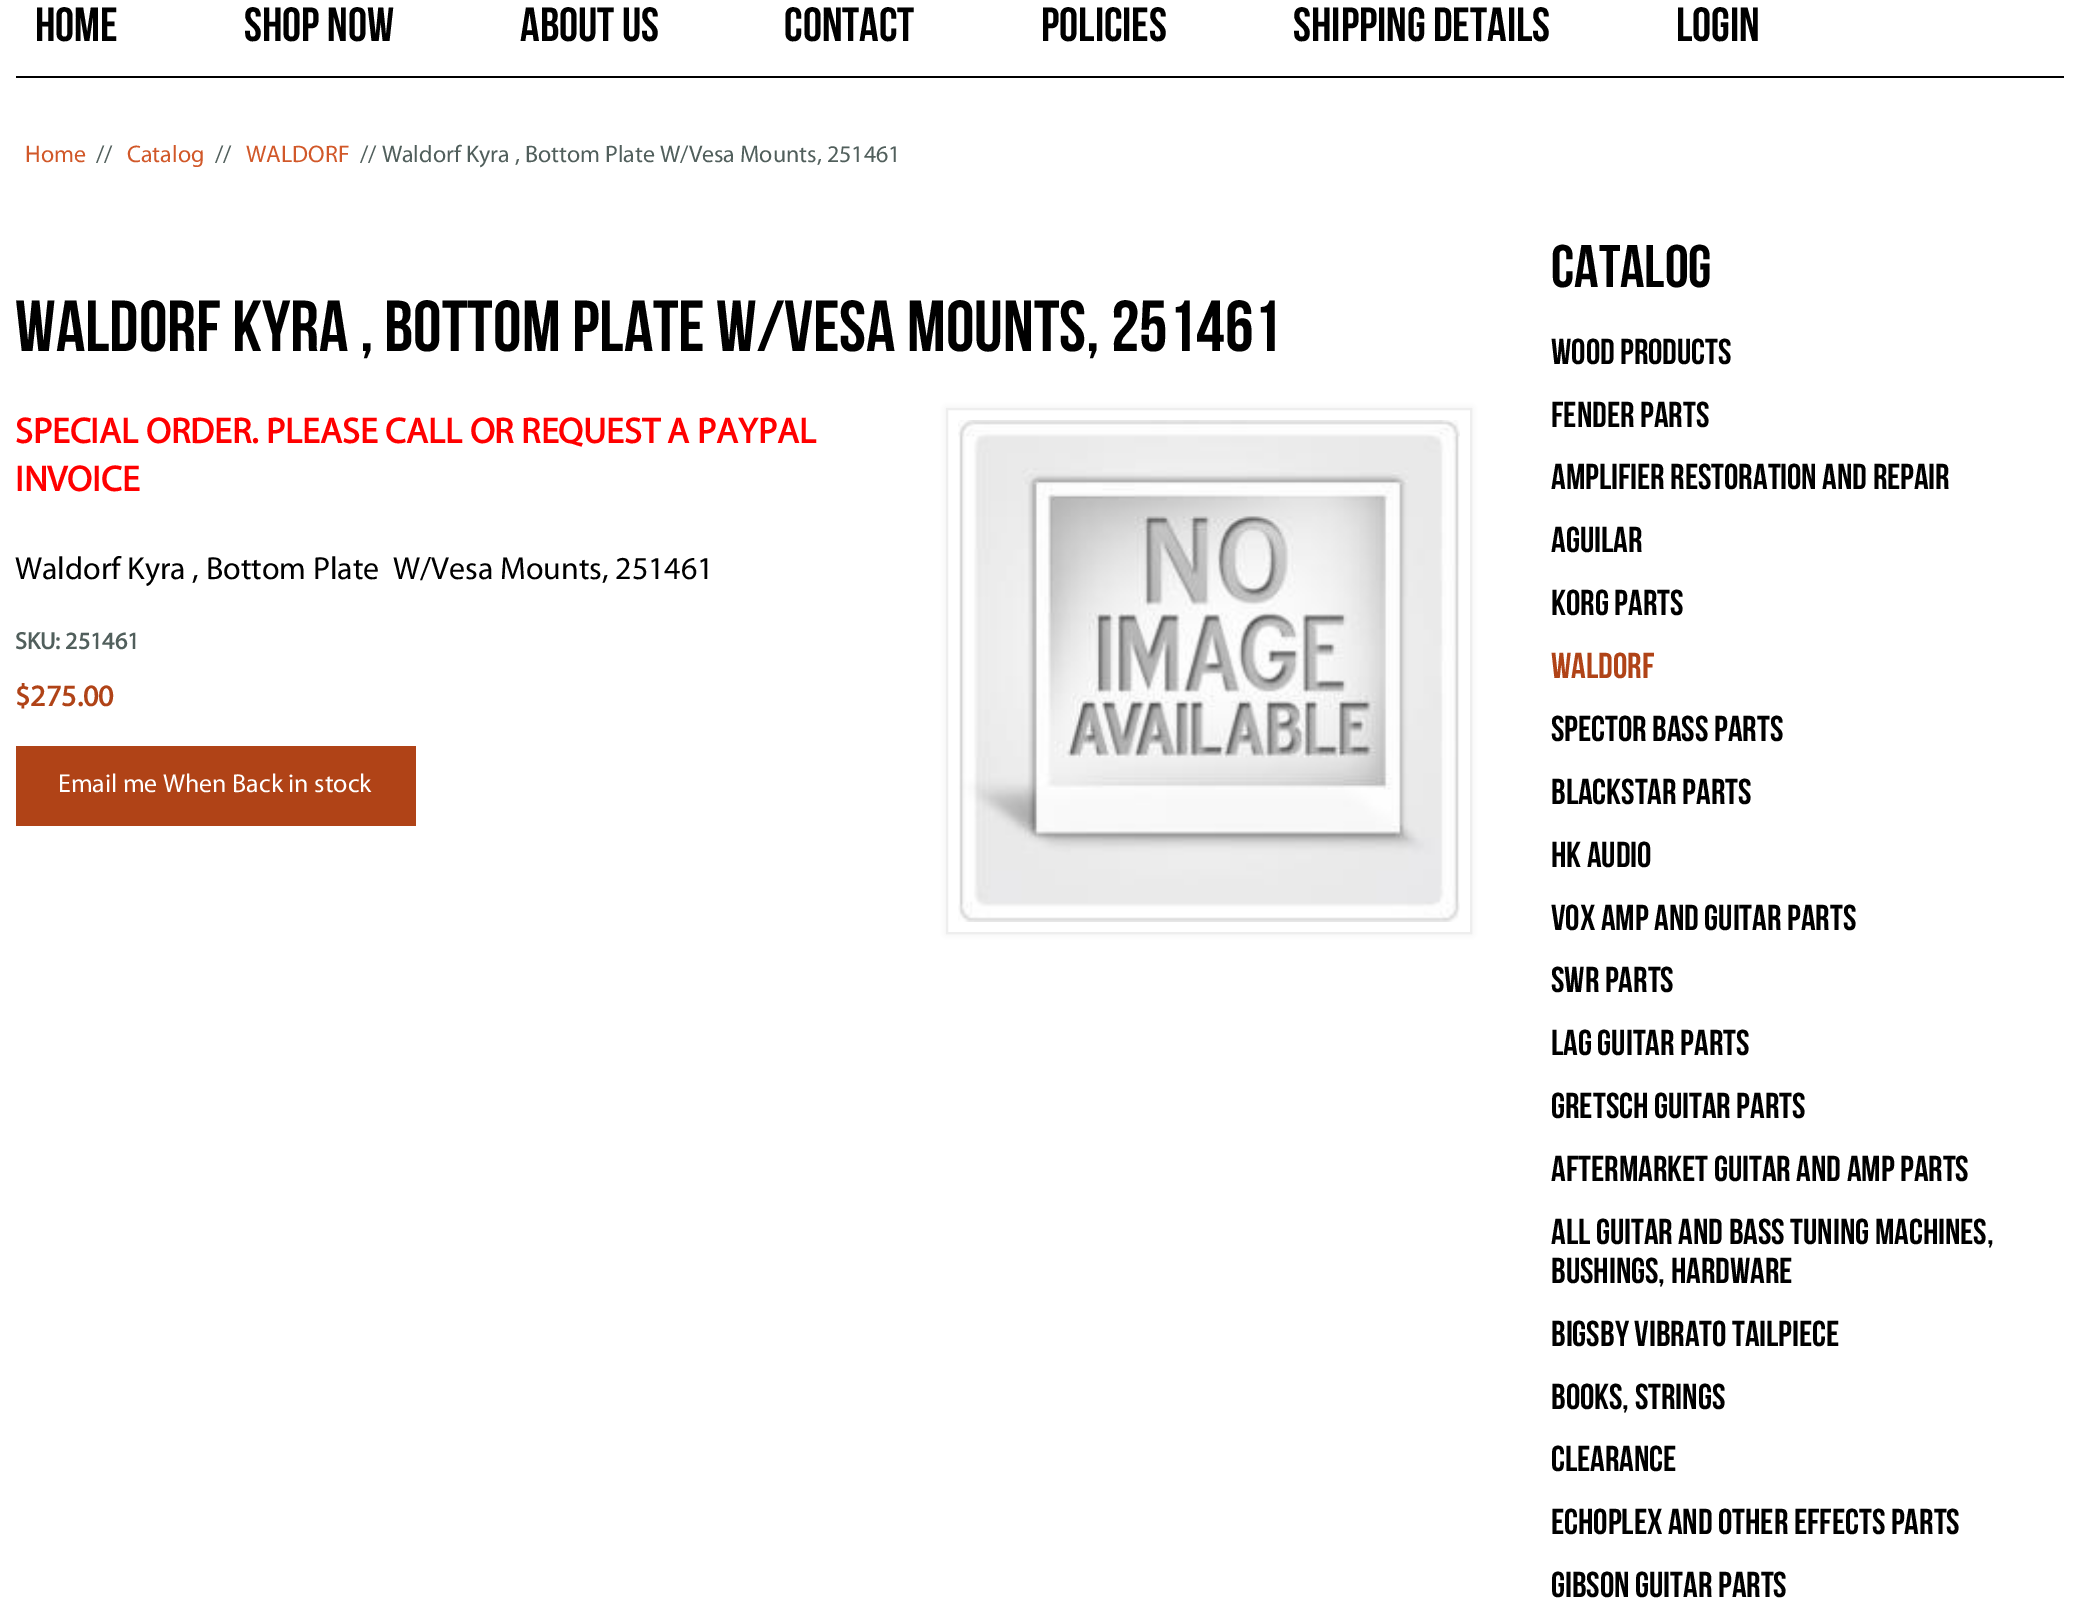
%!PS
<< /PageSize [2078 1608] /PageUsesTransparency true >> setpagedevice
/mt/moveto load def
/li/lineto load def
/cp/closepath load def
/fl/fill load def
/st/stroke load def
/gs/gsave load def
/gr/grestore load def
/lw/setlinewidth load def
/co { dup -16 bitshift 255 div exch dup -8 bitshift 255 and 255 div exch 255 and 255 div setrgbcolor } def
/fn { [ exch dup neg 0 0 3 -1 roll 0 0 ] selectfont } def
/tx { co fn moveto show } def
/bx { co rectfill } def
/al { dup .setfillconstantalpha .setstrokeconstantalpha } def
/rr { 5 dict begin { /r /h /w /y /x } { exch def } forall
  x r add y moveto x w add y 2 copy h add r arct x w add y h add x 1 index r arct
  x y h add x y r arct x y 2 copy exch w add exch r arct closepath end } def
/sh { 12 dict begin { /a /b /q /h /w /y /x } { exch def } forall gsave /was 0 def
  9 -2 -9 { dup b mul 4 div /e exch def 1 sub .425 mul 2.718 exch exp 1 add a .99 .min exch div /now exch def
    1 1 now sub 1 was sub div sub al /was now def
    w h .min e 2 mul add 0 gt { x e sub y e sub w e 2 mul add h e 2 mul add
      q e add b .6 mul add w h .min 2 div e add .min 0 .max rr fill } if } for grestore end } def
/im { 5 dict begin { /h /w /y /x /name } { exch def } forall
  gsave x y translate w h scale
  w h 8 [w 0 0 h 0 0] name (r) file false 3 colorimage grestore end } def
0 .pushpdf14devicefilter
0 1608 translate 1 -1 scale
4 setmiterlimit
0 0 2078 1608 16#FFFFFF bx
16 76 2048 2 16#000000 bx
16#EEEEEE co
946 408 526 526 0 3 1 sh
16#FFFFFF co
947 409 mt 1471 409 li 1471 933 li 947 933 li cp gs fl gr
16#EEEEEE co
2 lw
st
(media/1.raw) 958 420 502 502 im
16 746 400 80 16#B04317 bx
(HOME) 35 41 /BebasNeue-Bold 48 16#000000 tx
(SHOP NOW) 244 41 /BebasNeue-Bold 48 16#000000 tx
(ABOUT US) 520 41 /BebasNeue-Bold 48 16#000000 tx
(CONTACT) 784 41 /BebasNeue-Bold 48 16#000000 tx
(POLICIES) 1041 41 /BebasNeue-Bold 48 16#000000 tx
(SHIPPING DETAILS) 1293 41 /BebasNeue-Bold 48 16#000000 tx
(LOGIN) 1676 41 /BebasNeue-Bold 48 16#000000 tx
(Home) 25 162 /Myriad-Regular 24 16#D15829 tx
(//) 96 162 /Myriad-Regular 24 16#515F5C tx
(Catalog) 127 162 /Myriad-Regular 24 16#D15829 tx
(//) 215 162 /Myriad-Regular 24 16#515F5C tx
(WALDORF) 246 162 /Myriad-Regular 24 16#D15829 tx
(// Waldorf Kyra , Bottom Plate W/Vesa Mounts, 251461) 360 162 /Myriad-Regular 24 16#515F5C tx
(Waldorf Kyra , Bottom Plate W/Vesa Mounts, 251461) 15 351 /BebasNeue-Bold 72 16#000000 tx
(SPECIAL ORDER. PLEASE CALL OR REQUEST A PAYPAL) 15 443 /Myriad-Bold 36 16#FF0000 tx
(INVOICE) 15 491 /Myriad-Bold 36 16#FF0000 tx
(Waldorf Kyra , Bottom Plate  W/Vesa Mounts, 251461) 15 579 /Myriad-Regular 32 16#000000 tx
(SKU: 251461) 15 649 /Myriad-Bold 24 16#515F5C tx
($275.00) 15 706 /Myriad-Bold 30 16#B04317 tx
(Email me When Back in stock) 58 792 /Myriad-Regular 26 16#FFFFFF tx
(Catalog) 1551 287 /BebasNeue-Bold 60 16#000000 tx
(Wood Products) 1551 364 /BebasNeue-Bold 36 16#000000 tx
(Fender Parts) 1551 427 /BebasNeue-Bold 36 16#000000 tx
(Amplifier Restoration and Repair) 1551 489 /BebasNeue-Bold 36 16#000000 tx
(Aguilar) 1551 552 /BebasNeue-Bold 36 16#000000 tx
(Korg Parts) 1551 615 /BebasNeue-Bold 36 16#000000 tx
(WALDORF) 1551 678 /BebasNeue-Bold 36 16#B04317 tx
(Spector Bass Parts) 1551 741 /BebasNeue-Bold 36 16#000000 tx
(Blackstar Parts) 1551 804 /BebasNeue-Bold 36 16#000000 tx
(HK Audio) 1551 867 /BebasNeue-Bold 36 16#000000 tx
(Vox Amp and Guitar Parts) 1551 930 /BebasNeue-Bold 36 16#000000 tx
(SWR Parts) 1551 992 /BebasNeue-Bold 36 16#000000 tx
(Lag Guitar Parts) 1551 1055 /BebasNeue-Bold 36 16#000000 tx
(Gretsch Guitar Parts) 1551 1118 /BebasNeue-Bold 36 16#000000 tx
(Aftermarket Guitar and Amp Parts) 1551 1181 /BebasNeue-Bold 36 16#000000 tx
(All Guitar and Bass Tuning Machines,) 1551 1244 /BebasNeue-Bold 36 16#000000 tx
(Bushings, Hardware) 1551 1283 /BebasNeue-Bold 36 16#000000 tx
(Bigsby Vibrato Tailpiece) 1551 1346 /BebasNeue-Bold 36 16#000000 tx
(Books, Strings) 1551 1409 /BebasNeue-Bold 36 16#000000 tx
(Clearance) 1551 1471 /BebasNeue-Bold 36 16#000000 tx
(Echoplex and Other Effects Parts) 1551 1534 /BebasNeue-Bold 36 16#000000 tx
(Gibson Guitar Parts) 1551 1597 /BebasNeue-Bold 36 16#000000 tx
.poppdf14devicefilter showpage
